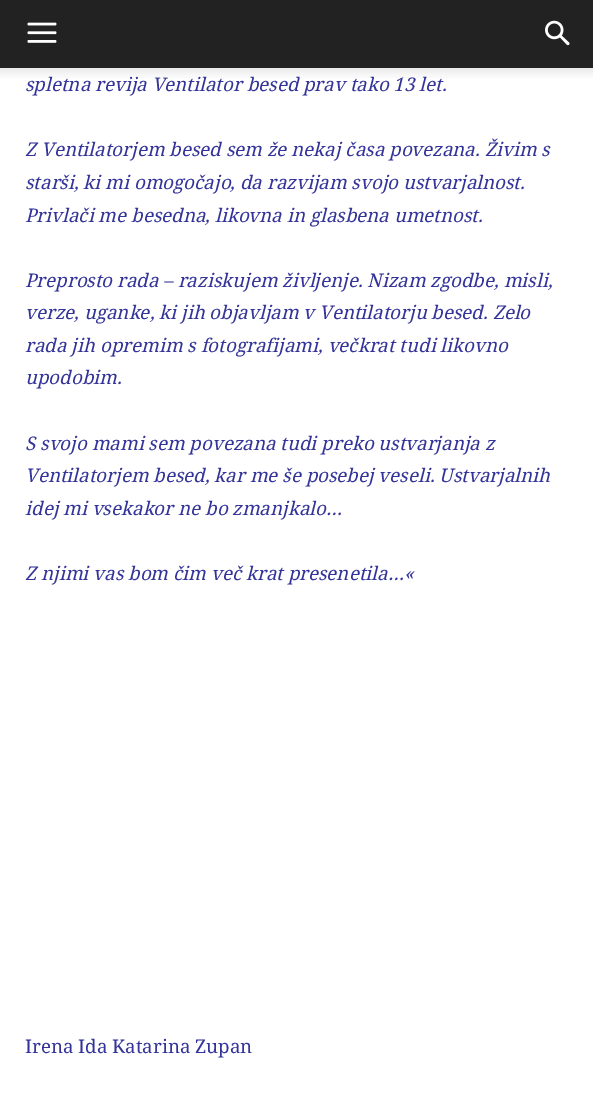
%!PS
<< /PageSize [593 1120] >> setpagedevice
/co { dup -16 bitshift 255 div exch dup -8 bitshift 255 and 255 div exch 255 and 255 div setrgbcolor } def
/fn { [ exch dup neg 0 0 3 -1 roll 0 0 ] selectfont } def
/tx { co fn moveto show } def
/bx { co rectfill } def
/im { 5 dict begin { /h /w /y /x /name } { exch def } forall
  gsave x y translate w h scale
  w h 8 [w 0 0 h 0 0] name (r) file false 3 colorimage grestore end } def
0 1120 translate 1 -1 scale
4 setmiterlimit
0 0 593 1120 16#FFFFFF bx
0 0 593 68 16#222222 bx
(media/1.raw) 27 22 30 21 im
(media/2.raw) 545 20 25 26 im
(spletna revija Ventilator besed prav tako 13 let.) 25 91 /NotoSerif-Italic 18.75 16#333399 tx
(media/3.raw) 0 68 593 10 im
(Z Ventilatorjem besed sem že nekaj časa povezana. Živim s) 25 156 /NotoSerif-Italic 18.75 16#333399 tx
(starši, ki mi omogočajo, da razvijam svojo ustvarjalnost.) 25 189 /NotoSerif-Italic 18.75 16#333399 tx
(Privlači me besedna, likovna in glasbena umetnost.) 25 222 /NotoSerif-Italic 18.75 16#333399 tx
(Preprosto rada – raziskujem življenje. Nizam zgodbe, misli,) 25 287 /NotoSerif-Italic 18.75 16#333399 tx
(verze, uganke, ki jih objavljam v Ventilatorju besed. Zelo) 25 319 /NotoSerif-Italic 18.75 16#333399 tx
(rada jih opremim s fotografijami, večkrat tudi likovno) 25 352 /NotoSerif-Italic 18.75 16#333399 tx
(upodobim.) 25 384 /NotoSerif-Italic 18.75 16#333399 tx
(S svojo mami sem povezana tudi preko ustvarjanja z) 25 450 /NotoSerif-Italic 18.75 16#333399 tx
(Ventilatorjem besed, kar me še posebej veseli. Ustvarjalnih) 25 482 /NotoSerif-Italic 18.75 16#333399 tx
(idej mi vsekakor ne bo zmanjkalo…) 25 515 /NotoSerif-Italic 18.75 16#333399 tx
(Z njimi vas bom čim več krat presenetila…«) 25 580 /NotoSerif-Italic 18.75 16#333399 tx
(Irena Ida Katarina Zupan) 25 1053 /NotoSerif-Regular 18.75 16#333399 tx
showpage
